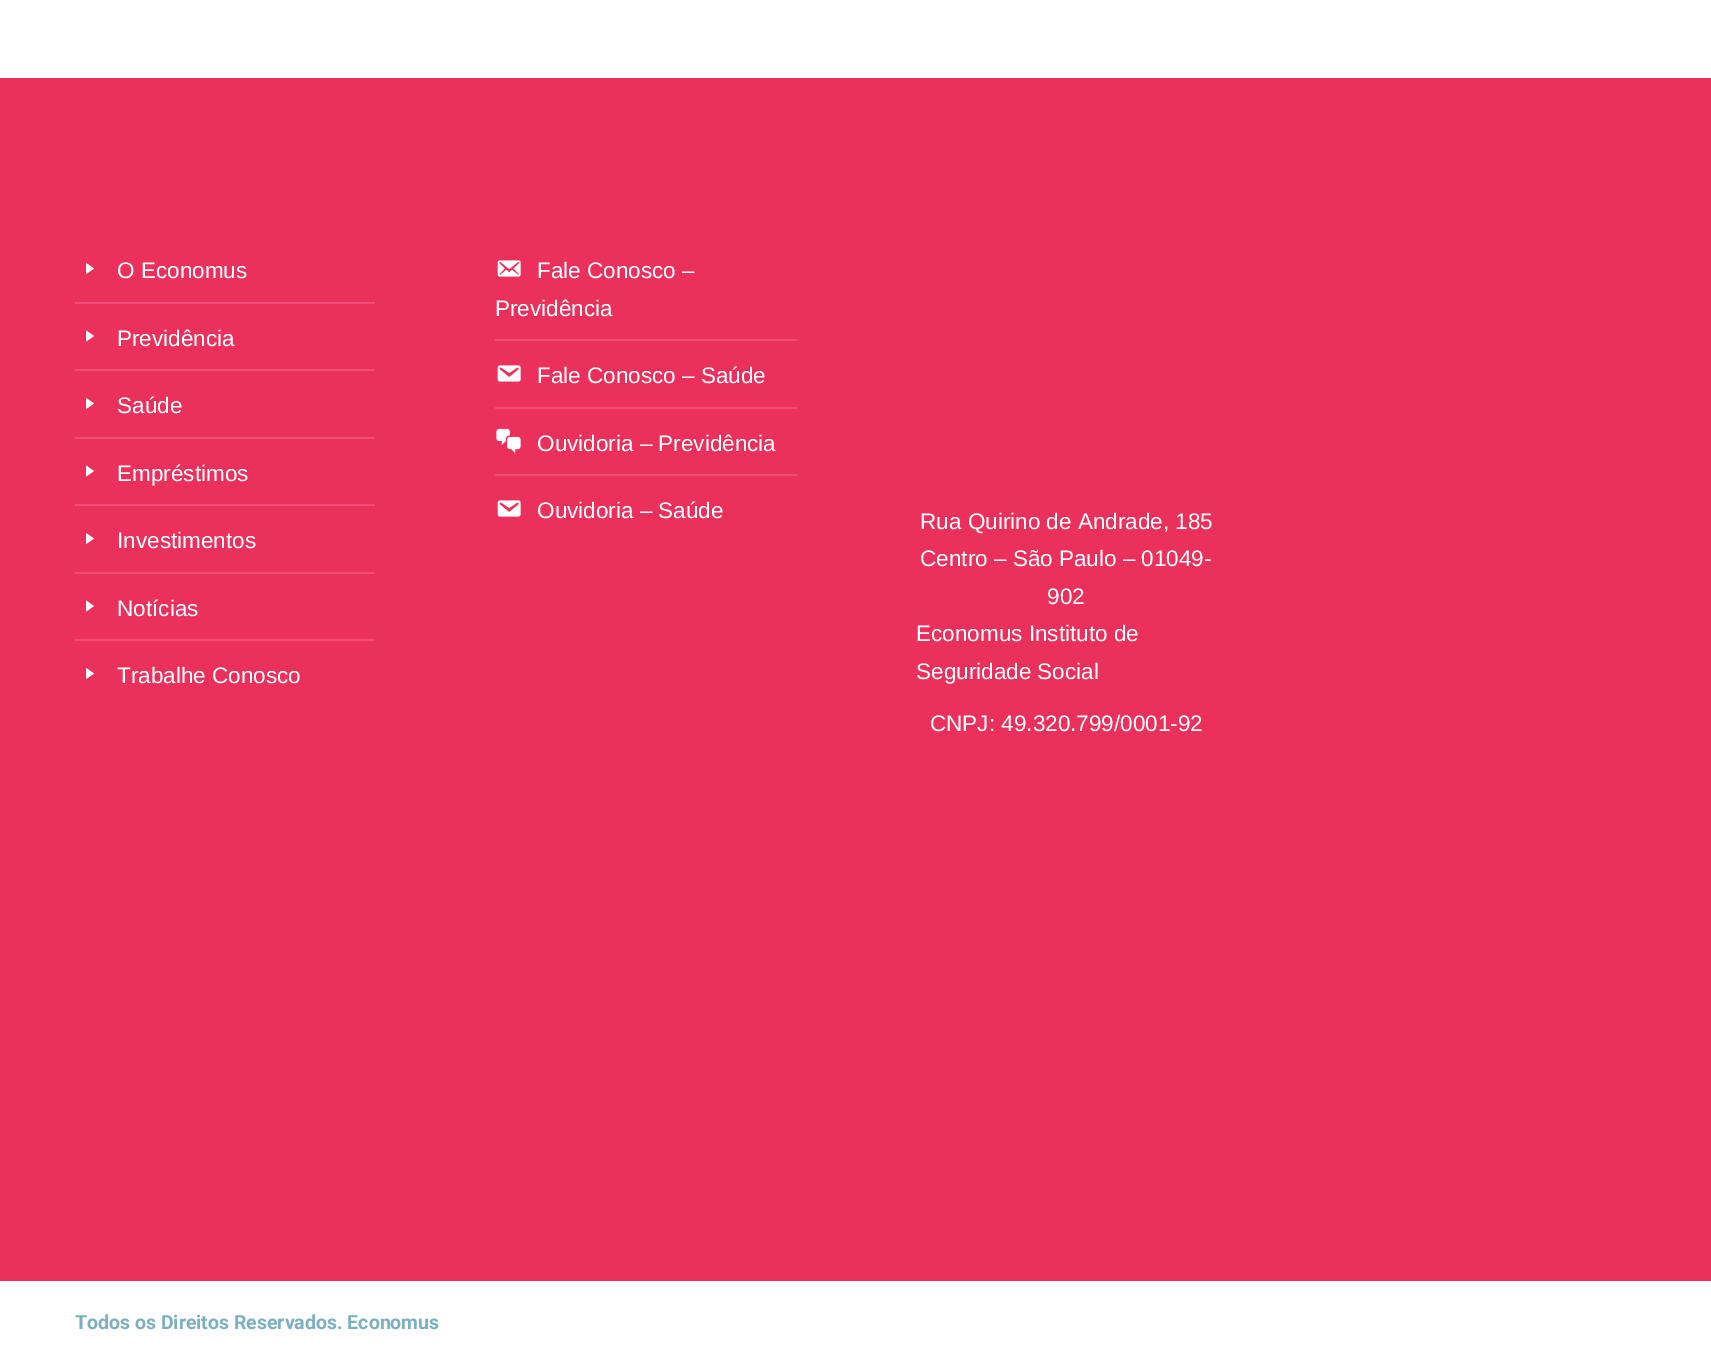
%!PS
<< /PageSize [1711 1348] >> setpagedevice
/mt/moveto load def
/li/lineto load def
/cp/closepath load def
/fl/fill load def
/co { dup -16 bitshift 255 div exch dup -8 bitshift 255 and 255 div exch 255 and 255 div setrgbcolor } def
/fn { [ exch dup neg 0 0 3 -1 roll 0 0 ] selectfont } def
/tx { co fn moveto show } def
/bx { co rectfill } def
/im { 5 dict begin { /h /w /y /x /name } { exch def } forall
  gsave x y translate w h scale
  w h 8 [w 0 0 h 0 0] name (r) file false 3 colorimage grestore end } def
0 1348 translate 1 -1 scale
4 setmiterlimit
0 0 1711 1348 16#FFFFFF bx
0 78 1711 1203 16#EC305C bx
16#FFFFFF co
86 263 mt 94 268.5 li 86 274 li cp fl
75 302 300 2 16#EF4F74 bx
16#FFFFFF co
86 330.5 mt 94 336 li 86 341.5 li cp fl
75 369 300 2 16#EF4F74 bx
16#FFFFFF co
86 398 mt 94 403.5 li 86 409 li cp fl
75 437 300 2 16#EF4F74 bx
16#FFFFFF co
86 465.5 mt 94 471 li 86 476.5 li cp fl
75 504 300 2 16#EF4F74 bx
16#FFFFFF co
86 533 mt 94 538.5 li 86 544 li cp fl
75 572 300 2 16#EF4F74 bx
16#FFFFFF co
86 600.5 mt 94 606 li 86 611.5 li cp fl
75 639 300 2 16#EF4F74 bx
16#FFFFFF co
86 668 mt 94 673.5 li 86 679 li cp fl
(media/1.raw) 497 260 24 17 im
495 339 302 2 16#EF4F74 bx
(media/2.raw) 497 365 24 17 im
495 407 302 2 16#EF4F74 bx
(media/3.raw) 496 428 25 25 im
495 474 302 2 16#EF4F74 bx
(media/2.raw) 497 500 24 17 im
(O Economus) 117 278 /LiberationSans-Regular 22.5 16#FFFFFF tx
(Previdência) 117 346 /LiberationSans-Regular 22.5 16#FFFFFF tx
(Saúde) 117 413 /LiberationSans-Regular 22.5 16#FFFFFF tx
(Empréstimos) 117 481 /LiberationSans-Regular 22.5 16#FFFFFF tx
(Investimentos) 117 548 /LiberationSans-Regular 22.5 16#FFFFFF tx
(Notícias) 117 616 /LiberationSans-Regular 22.5 16#FFFFFF tx
(Trabalhe Conosco) 117 683 /LiberationSans-Regular 22.5 16#FFFFFF tx
(Fale Conosco –) 537 278 /LiberationSans-Regular 22.5 16#FFFFFF tx
(Previdência) 495 316 /LiberationSans-Regular 22.5 16#FFFFFF tx
(Fale Conosco – Saúde) 537 383 /LiberationSans-Regular 22.5 16#FFFFFF tx
(Ouvidoria – Previdência) 537 451 /LiberationSans-Regular 22.5 16#FFFFFF tx
(Ouvidoria – Saúde) 537 518 /LiberationSans-Regular 22.5 16#FFFFFF tx
(Rua Quirino de Andrade, 185) 920 529 /LiberationSans-Regular 22.5 16#FFFFFF tx
(Centro – São Paulo – 01049-) 920 566 /LiberationSans-Regular 22.5 16#FFFFFF tx
(902) 1047 604 /LiberationSans-Regular 22.5 16#FFFFFF tx
(Economus Instituto de) 916 641 /LiberationSans-Regular 22.5 16#FFFFFF tx
(Seguridade Social) 916 679 /LiberationSans-Regular 22.5 16#FFFFFF tx
(CNPJ: 49.320.799/0001-92) 930 731 /LiberationSans-Regular 22.5 16#FFFFFF tx
(Todos os Direitos Reservados. Economus) 75 1329 /Roboto-Bold 19.5 16#7CAFC0 tx
showpage
